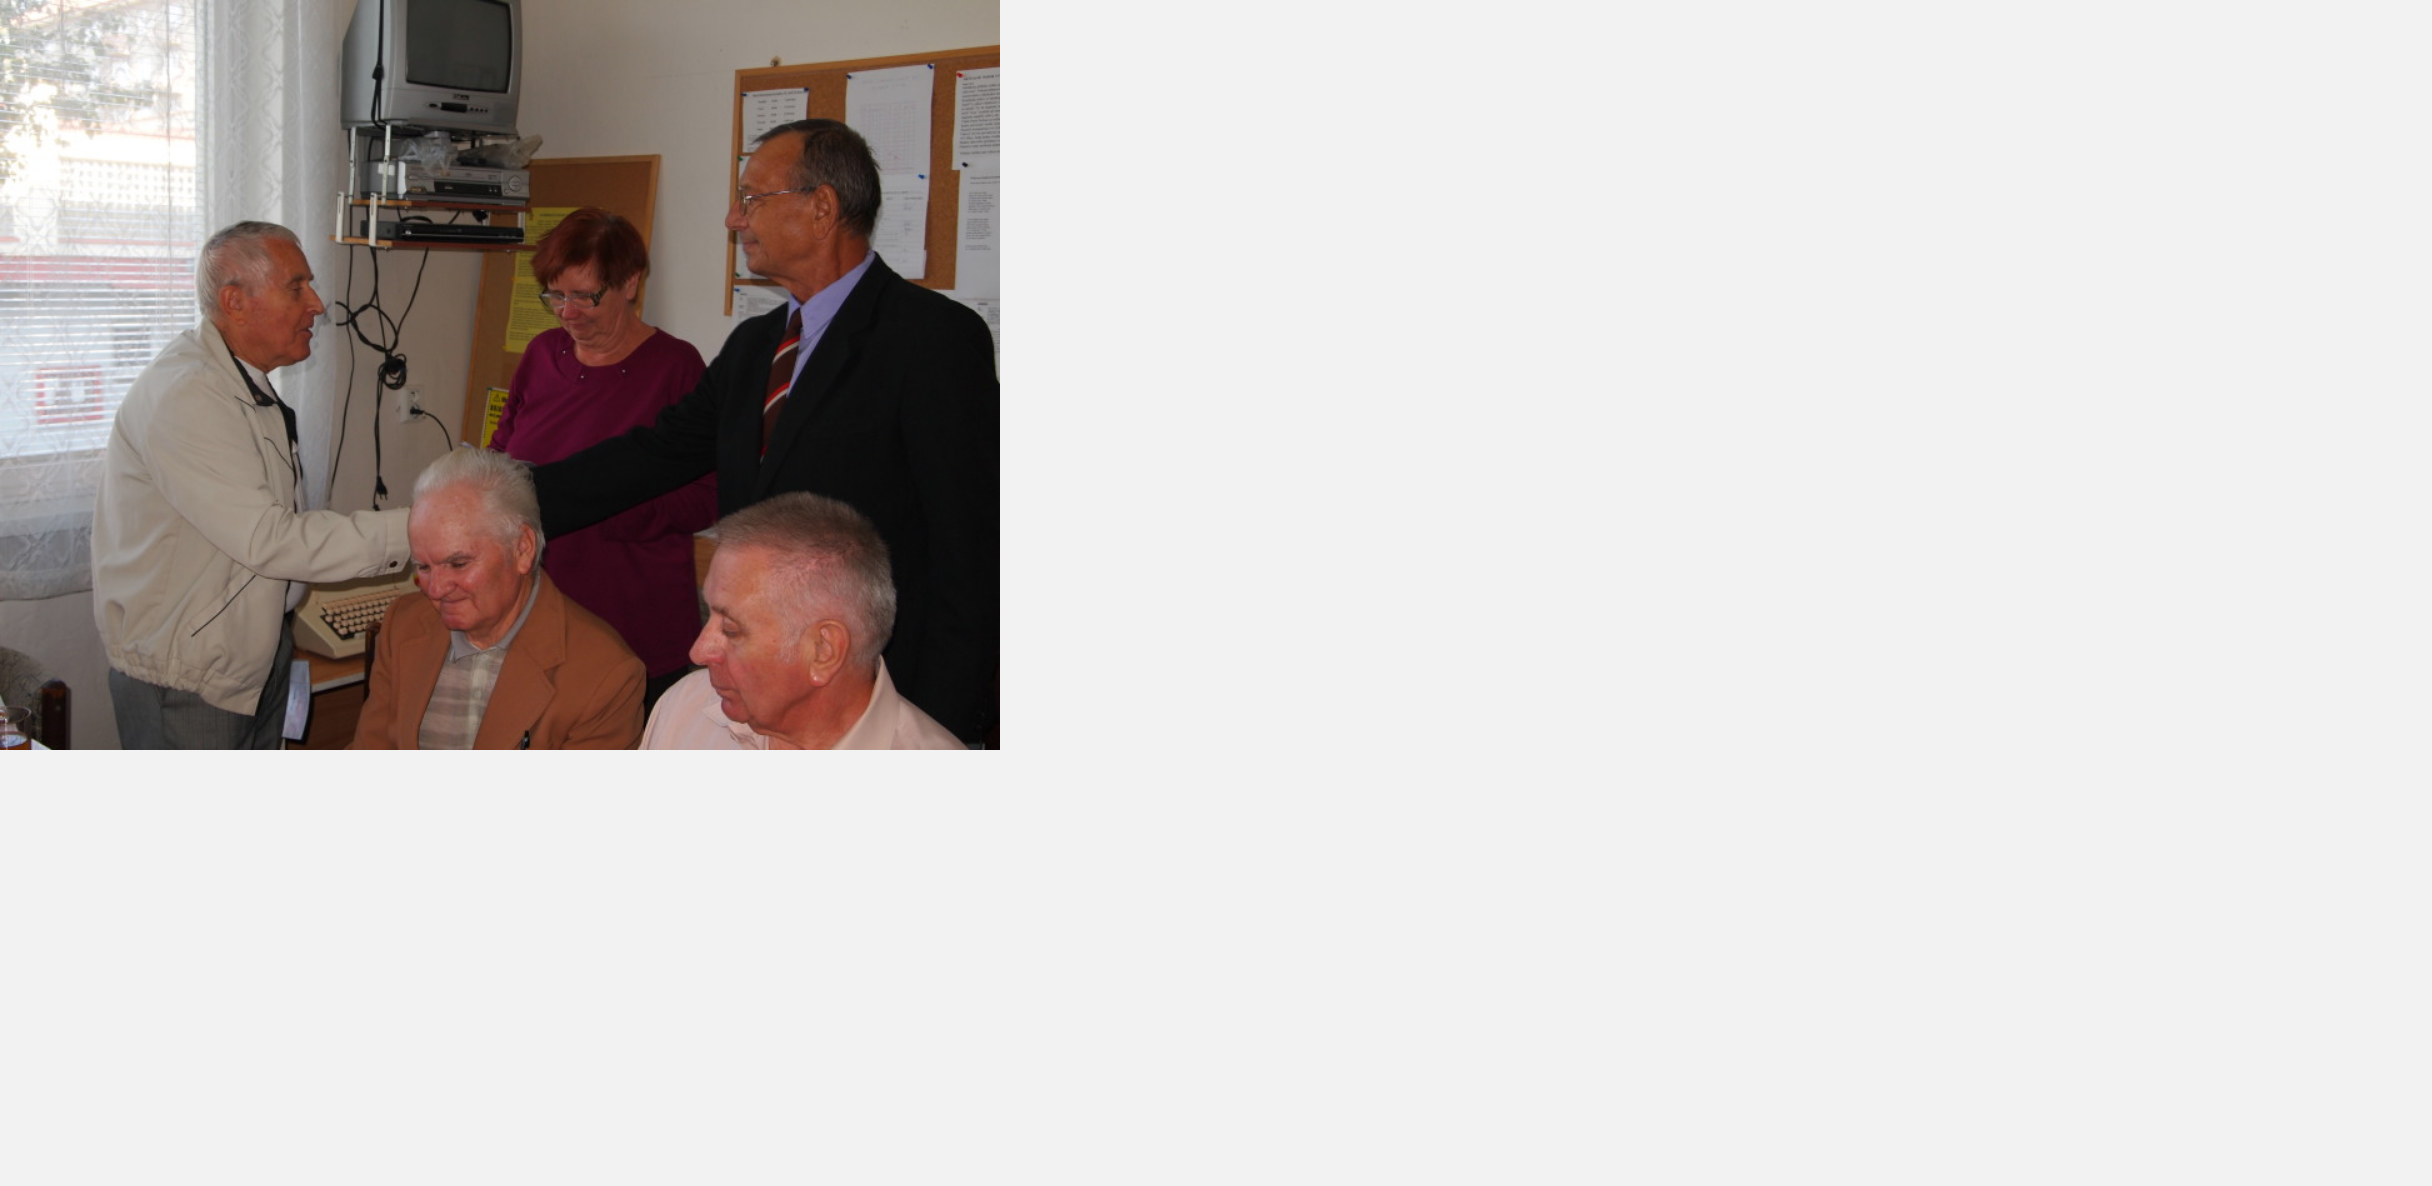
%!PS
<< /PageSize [2432 1186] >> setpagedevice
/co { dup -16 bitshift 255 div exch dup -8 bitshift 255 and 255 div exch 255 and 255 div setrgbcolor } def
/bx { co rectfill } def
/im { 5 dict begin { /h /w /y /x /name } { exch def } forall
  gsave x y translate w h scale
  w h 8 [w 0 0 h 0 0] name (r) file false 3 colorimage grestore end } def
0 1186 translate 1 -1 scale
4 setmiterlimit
0 0 2432 1186 16#F2F2F2 bx
(media/1.raw) 0 0 1000 750 im
showpage
